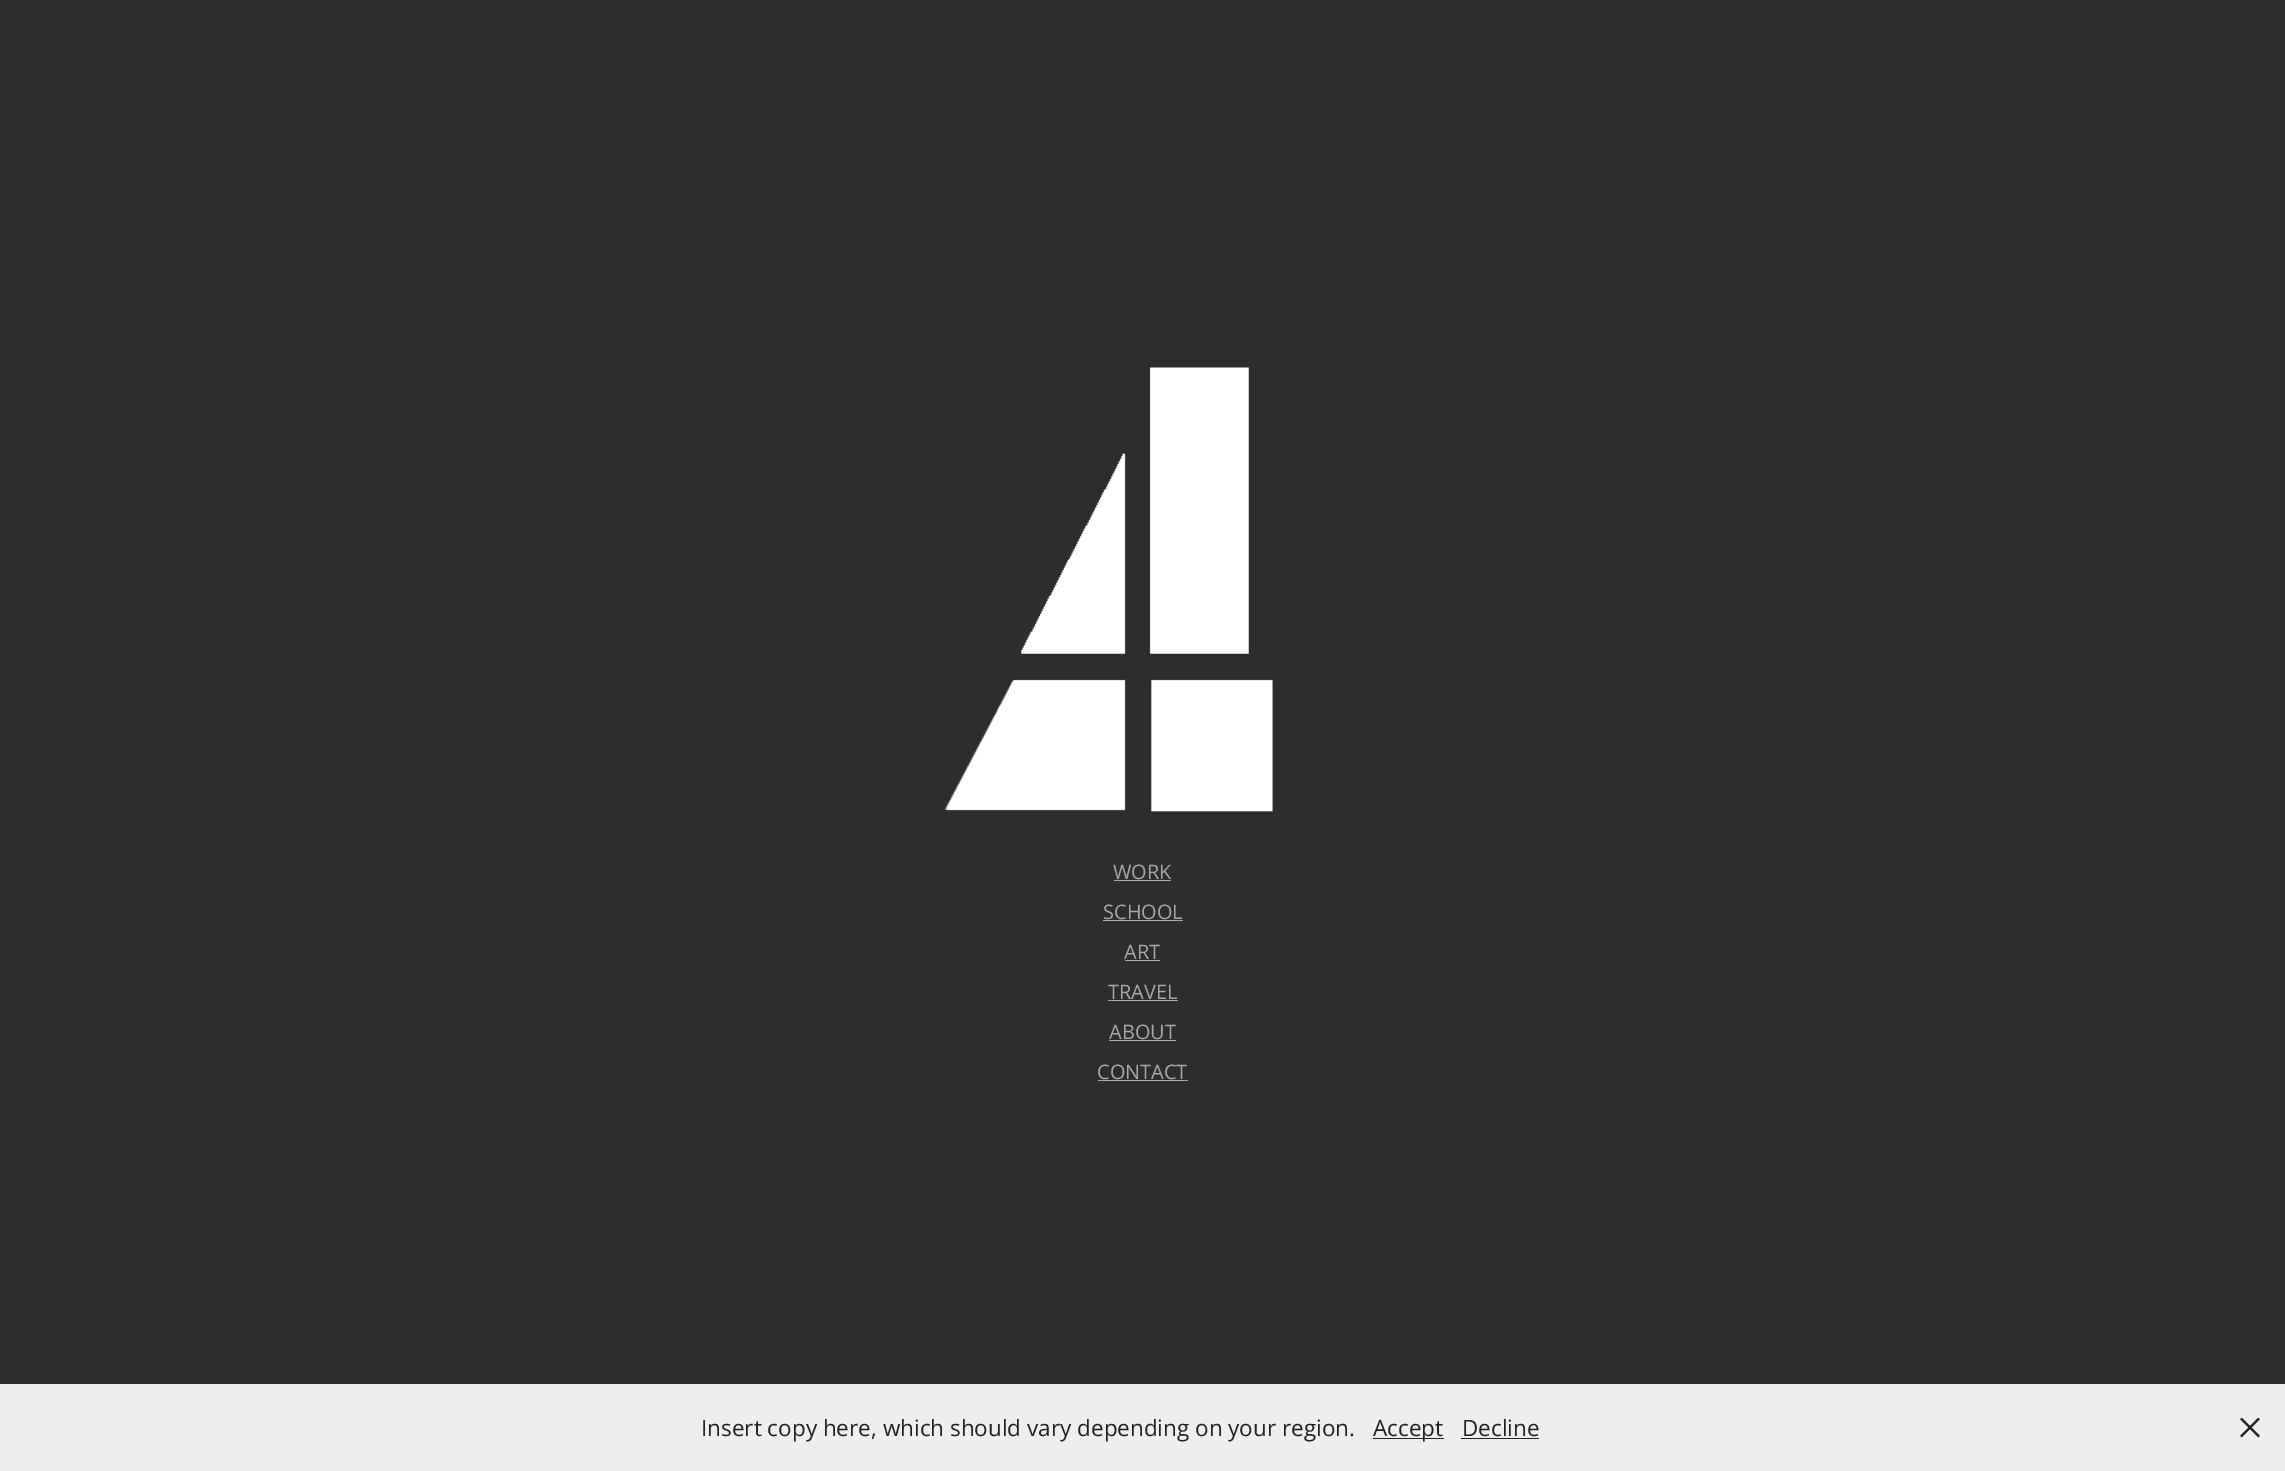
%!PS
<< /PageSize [2285 1471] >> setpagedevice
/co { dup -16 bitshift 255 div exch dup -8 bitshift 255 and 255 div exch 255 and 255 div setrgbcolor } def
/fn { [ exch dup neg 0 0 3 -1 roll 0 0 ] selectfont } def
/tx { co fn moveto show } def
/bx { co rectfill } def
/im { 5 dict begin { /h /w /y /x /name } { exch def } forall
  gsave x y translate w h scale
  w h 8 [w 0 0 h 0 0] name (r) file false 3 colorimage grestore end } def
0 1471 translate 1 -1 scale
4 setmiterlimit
0 0 2285 1471 16#2D2D2D bx
(media/1.raw) 944 367 329 445 im
1114 880 57 1 16#A9A9A9 bx
1103 920 80 1 16#A9A9A9 bx
1125 960 35 1 16#A9A9A9 bx
1108 1000 70 1 16#A9A9A9 bx
1109 1040 67 1 16#A9A9A9 bx
1098 1080 90 1 16#A9A9A9 bx
0 1384 2285 87 16#EDEEEE bx
1373 1438 71 1 16#212121 bx
1461 1438 78 1 16#212121 bx
(media/2.raw) 2240 1418 20 20 im
(WORK) 1113 879 /OpenSans-Regular 20 16#A9A9A9 tx
(SCHOOL) 1103 919 /OpenSans-Regular 20 16#A9A9A9 tx
(ART) 1124 959 /OpenSans-Regular 20 16#A9A9A9 tx
(TRAVEL) 1108 999 /OpenSans-Regular 20 16#A9A9A9 tx
(ABOUT) 1109 1039 /OpenSans-Regular 20 16#A9A9A9 tx
(CONTACT) 1097 1079 /OpenSans-Regular 20 16#A9A9A9 tx
(Insert copy here, which should vary depending on your region.) 701 1436 /OpenSans-Regular 22.5 16#212121 tx
(Accept) 1373 1436 /OpenSans-Regular 22.5 16#212121 tx
(Decline) 1462 1436 /OpenSans-Regular 22.5 16#212121 tx
showpage
